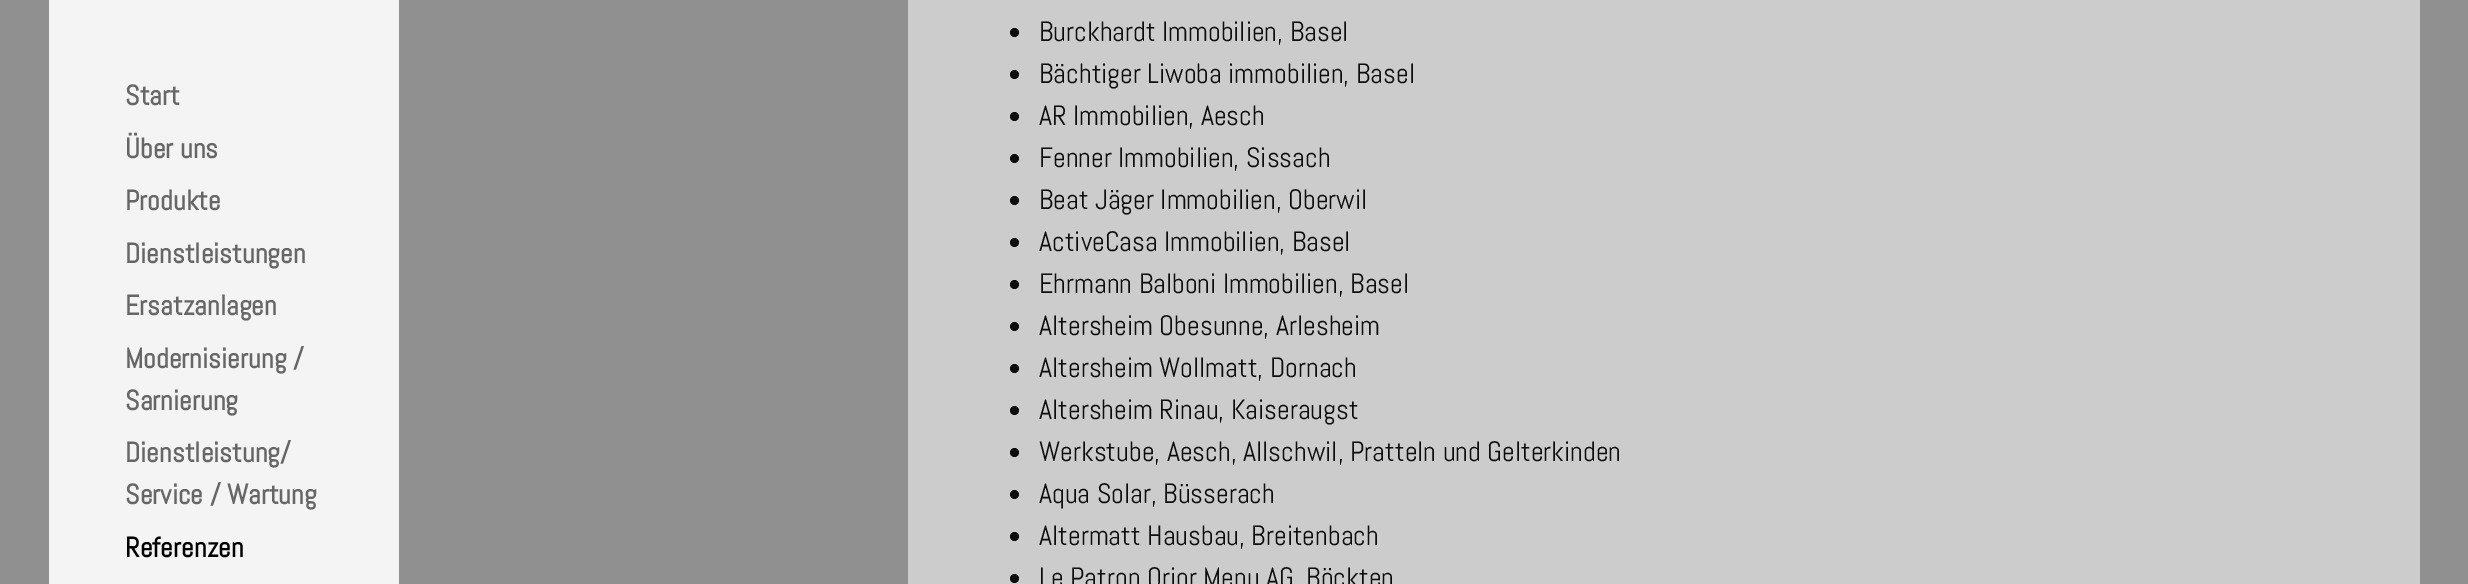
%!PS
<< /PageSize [2468 584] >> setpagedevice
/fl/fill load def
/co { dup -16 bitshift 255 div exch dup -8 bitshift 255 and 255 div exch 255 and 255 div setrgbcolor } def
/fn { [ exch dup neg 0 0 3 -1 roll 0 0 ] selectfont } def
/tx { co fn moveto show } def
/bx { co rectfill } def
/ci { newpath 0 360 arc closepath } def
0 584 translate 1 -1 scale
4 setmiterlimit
0 0 2468 584 16#909090 bx
49 0 350 584 16#F4F4F4 bx
908 0 1512 584 16#CCCCCC bx
16#0D0D0D co
1014.5 32.5 4.5 ci fl
1014.5 74.5 4.5 ci fl
1014.5 116.5 4.5 ci fl
1014.5 158.5 4.5 ci fl
1014.5 200.5 4.5 ci fl
1014.5 242.5 4.5 ci fl
1014.5 284.5 4.5 ci fl
1014.5 326.5 4.5 ci fl
1014.5 368.5 4.5 ci fl
1014.5 410.5 4.5 ci fl
1014.5 452.5 4.5 ci fl
1014.5 494.5 4.5 ci fl
1014.5 536.5 4.5 ci fl
1014.5 578.5 4.5 ci fl
(Start) 125 105 /Abel-Bold 28 16#666666 tx
(Über uns) 125 158 /Abel-Bold 28 16#666666 tx
(Produkte) 125 210 /Abel-Bold 28 16#666666 tx
(Dienstleistungen) 125 263 /Abel-Bold 28 16#666666 tx
(Ersatzanlagen) 125 315 /Abel-Bold 28 16#666666 tx
(Modernisierung /) 125 368 /Abel-Bold 28 16#666666 tx
(Sarnierung) 125 410 /Abel-Bold 28 16#666666 tx
(Dienstleistung/) 125 462 /Abel-Bold 28 16#666666 tx
(Service / Wartung) 125 504 /Abel-Bold 28 16#666666 tx
(Referenzen) 125 557 /Abel-Bold 28 16#000000 tx
(Burckhardt Immobilien, Basel) 1039 41 /Abel-Regular 28 16#0D0D0D tx
(Bächtiger Liwoba immobilien, Basel) 1039 83 /Abel-Regular 28 16#0D0D0D tx
(AR Immobilien, Aesch) 1039 125 /Abel-Regular 28 16#0D0D0D tx
(Fenner Immobilien, Sissach) 1039 167 /Abel-Regular 28 16#0D0D0D tx
(Beat Jäger Immobilien, Oberwil) 1039 209 /Abel-Regular 28 16#0D0D0D tx
(ActiveCasa Immobilien, Basel) 1039 251 /Abel-Regular 28 16#0D0D0D tx
(Ehrmann Balboni Immobilien, Basel) 1039 293 /Abel-Regular 28 16#0D0D0D tx
(Altersheim Obesunne, Arlesheim) 1039 335 /Abel-Regular 28 16#0D0D0D tx
(Altersheim Wollmatt, Dornach) 1039 377 /Abel-Regular 28 16#0D0D0D tx
(Altersheim Rinau, Kaiseraugst) 1039 419 /Abel-Regular 28 16#0D0D0D tx
(Werkstube, Aesch, Allschwil, Pratteln und Gelterkinden) 1039 461 /Abel-Regular 28 16#0D0D0D tx
(Aqua Solar, Büsserach) 1039 503 /Abel-Regular 28 16#0D0D0D tx
(Altermatt Hausbau, Breitenbach) 1039 545 /Abel-Regular 28 16#0D0D0D tx
(Le Patron Orior Menu AG, Böckten) 1039 587 /Abel-Regular 28 16#0D0D0D tx
showpage
